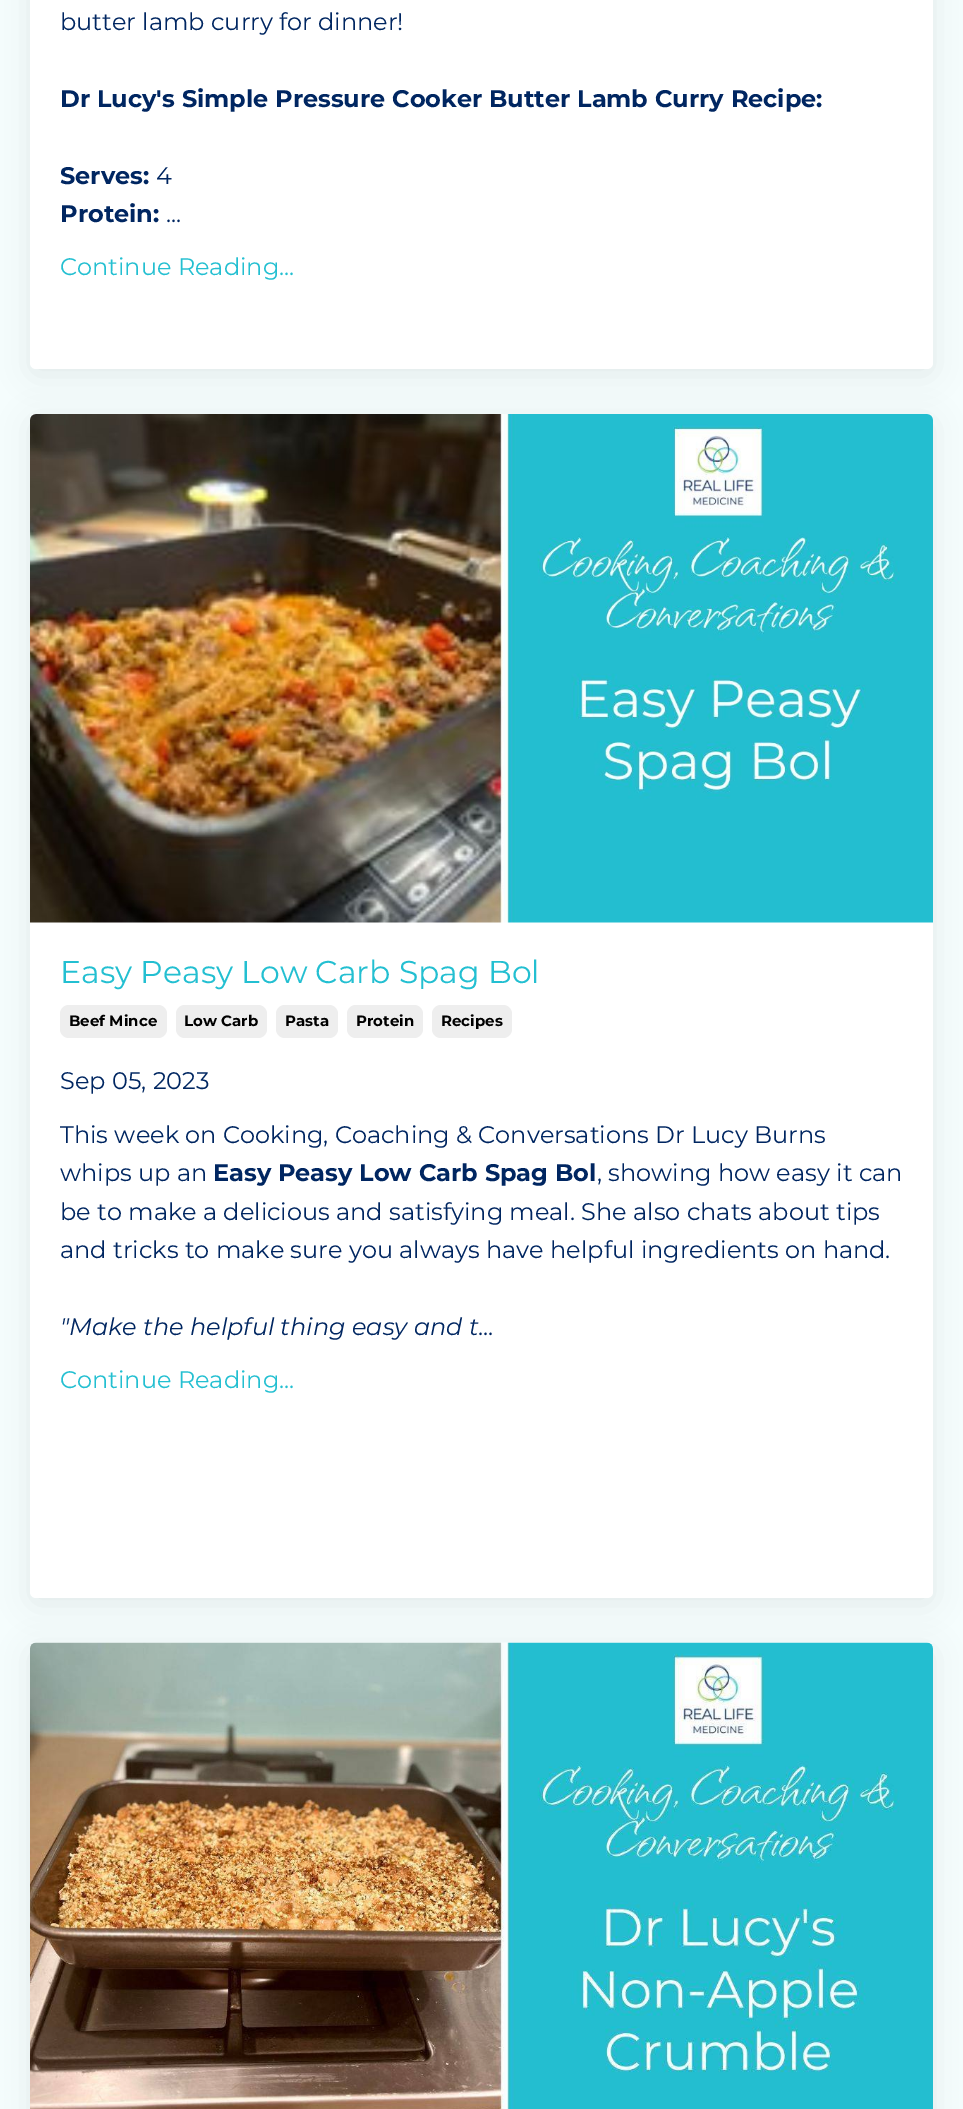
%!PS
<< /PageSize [963 2109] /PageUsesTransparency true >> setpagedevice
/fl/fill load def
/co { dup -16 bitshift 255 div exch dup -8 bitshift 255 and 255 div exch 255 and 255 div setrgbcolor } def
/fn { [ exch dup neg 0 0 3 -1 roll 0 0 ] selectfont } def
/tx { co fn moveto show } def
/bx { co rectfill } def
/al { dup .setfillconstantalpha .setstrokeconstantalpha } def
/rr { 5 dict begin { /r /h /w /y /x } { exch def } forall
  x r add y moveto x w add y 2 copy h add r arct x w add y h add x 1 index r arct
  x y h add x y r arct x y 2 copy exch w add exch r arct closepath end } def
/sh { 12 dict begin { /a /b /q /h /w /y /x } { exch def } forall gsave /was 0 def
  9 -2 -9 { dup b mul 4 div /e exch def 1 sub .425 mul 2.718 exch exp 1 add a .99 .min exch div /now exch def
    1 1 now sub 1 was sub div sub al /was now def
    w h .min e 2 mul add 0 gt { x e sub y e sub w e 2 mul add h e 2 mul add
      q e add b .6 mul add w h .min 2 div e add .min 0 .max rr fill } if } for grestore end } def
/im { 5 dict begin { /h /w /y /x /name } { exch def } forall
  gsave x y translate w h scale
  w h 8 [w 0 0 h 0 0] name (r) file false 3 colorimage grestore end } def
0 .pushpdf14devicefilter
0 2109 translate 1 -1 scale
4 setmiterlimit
0 0 963 2109 16#F5FDFD bx
16#000000 co
30 -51 903 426 6 15 .07 sh
16#FFFFFF co
30 -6 903 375 6 rr fl
16#000000 co
30 420 903 1184 6 15 .07 sh
16#FFFFFF co
30 414 903 1184 6 rr fl
(media/1.raw) 30 414 903 509 im
16#EEEEEE co
60 1005 107 33 9 rr fl
176 1005 91 33 9 rr fl
276 1005 62 33 9 rr fl
347 1005 76 33 9 rr fl
432 1005 80 33 9 rr fl
16#000000 co
30 1649 903 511 6 15 .07 sh
(media/2.raw) 30 1642 903 467 im
(butter lamb curry for dinner!) 60 30 /Montserrat-Regular 24 16#002661 tx
(Dr Lucy's Simple Pressure Cooker Butter Lamb Curry Recipe:) 60 107 /Montserrat-Bold 24 16#002661 tx
(Serves:) 60 184 /Montserrat-Bold 24 16#002661 tx
(4) 156 184 /Montserrat-Regular 24 16#002661 tx
(Protein:) 60 222 /Montserrat-Bold 24 16#002661 tx
(...) 166 222 /Montserrat-Regular 24 16#002661 tx
(Continue Reading...) 60 275 /Montserrat-Regular 24 16#23BFD1 tx
(Easy Peasy Low Carb Spag Bol) 60 983 /Montserrat-Regular 31.5 16#23BFD1 tx
(Beef Mince) 69 1026 /Montserrat-Bold 15 16#000000 tx
(Low Carb) 184 1026 /Montserrat-Bold 15 16#000000 tx
(Pasta) 285 1026 /Montserrat-Bold 15 16#000000 tx
(Protein) 356 1026 /Montserrat-Bold 15 16#000000 tx
(Recipes) 441 1026 /Montserrat-Bold 15 16#000000 tx
(Sep 05, 2023) 60 1089 /Montserrat-Regular 24 16#002661 tx
(This week on Cooking, Coaching & Conversations Dr Lucy Burns) 60 1143 /Montserrat-Regular 24 16#002661 tx
(whips up an) 60 1181 /Montserrat-Regular 24 16#002661 tx
(Easy Peasy Low Carb Spag Bol) 213 1181 /Montserrat-Bold 24 16#002661 tx
(, showing how easy it can) 597 1181 /Montserrat-Regular 24 16#002661 tx
(be to make a delicious and satisfying meal. She also chats about tips) 60 1220 /Montserrat-Regular 24 16#002661 tx
(and tricks to make sure you always have helpful ingredients on hand.) 60 1258 /Montserrat-Regular 24 16#002661 tx
("Make the helpful thing easy and t) 60 1335 /Montserrat-Italic 24 16#002661 tx
(...) 478 1335 /Montserrat-Regular 24 16#002661 tx
(Continue Reading...) 60 1388 /Montserrat-Regular 24 16#23BFD1 tx
.poppdf14devicefilter showpage
